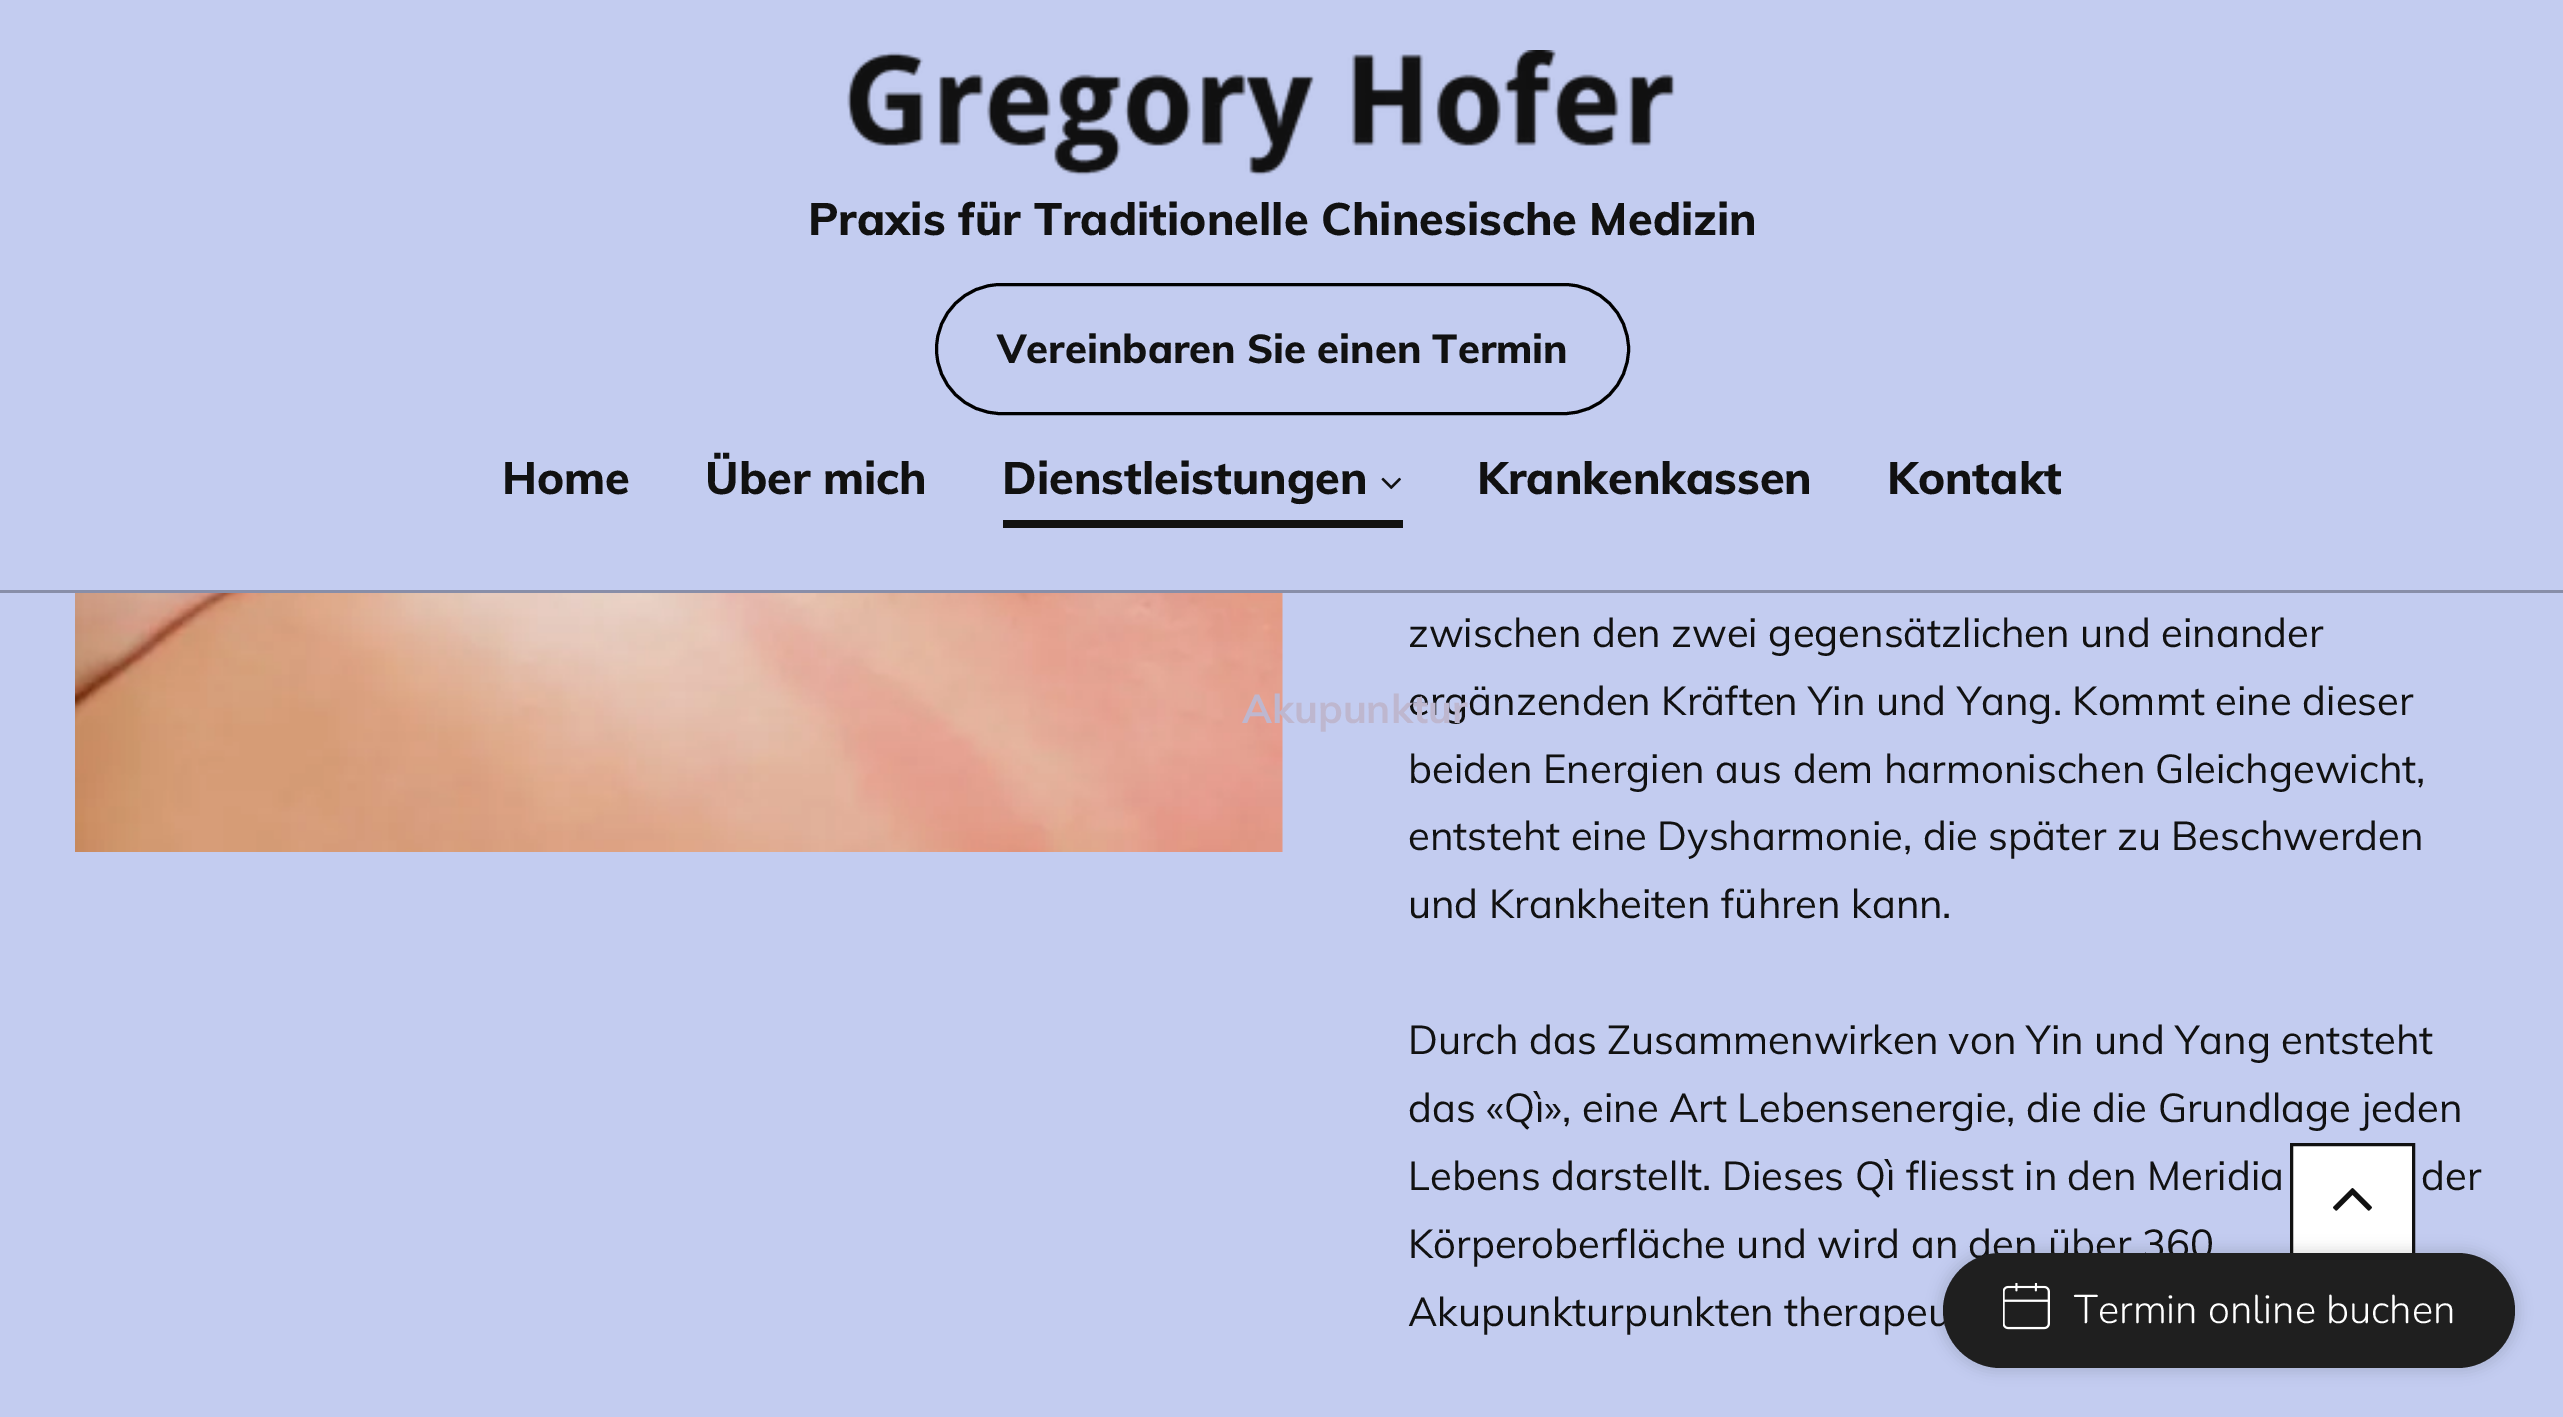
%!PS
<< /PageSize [2563 1417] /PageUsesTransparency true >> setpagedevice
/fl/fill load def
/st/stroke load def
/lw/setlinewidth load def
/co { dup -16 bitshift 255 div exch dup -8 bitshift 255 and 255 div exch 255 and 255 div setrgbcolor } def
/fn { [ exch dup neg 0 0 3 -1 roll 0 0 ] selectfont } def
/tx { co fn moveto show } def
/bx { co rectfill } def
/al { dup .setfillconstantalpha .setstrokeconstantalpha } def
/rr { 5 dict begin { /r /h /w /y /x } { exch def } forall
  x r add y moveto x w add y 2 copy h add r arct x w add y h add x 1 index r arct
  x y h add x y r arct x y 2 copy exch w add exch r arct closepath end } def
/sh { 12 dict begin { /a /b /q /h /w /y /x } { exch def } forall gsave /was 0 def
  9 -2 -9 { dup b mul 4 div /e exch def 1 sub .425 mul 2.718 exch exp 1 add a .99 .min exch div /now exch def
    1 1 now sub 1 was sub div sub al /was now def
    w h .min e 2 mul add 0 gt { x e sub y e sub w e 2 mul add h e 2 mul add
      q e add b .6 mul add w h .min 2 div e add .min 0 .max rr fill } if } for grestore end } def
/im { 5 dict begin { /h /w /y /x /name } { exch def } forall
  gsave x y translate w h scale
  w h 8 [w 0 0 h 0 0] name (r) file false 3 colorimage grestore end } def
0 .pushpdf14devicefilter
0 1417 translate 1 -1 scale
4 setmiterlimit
0 0 2563 1417 16#C3CCF0 bx
0 590 2563 3 16#888EA8 bx
(media/1.raw) 847 50 828 126 im
16#000000 co
3 lw
936.5 284.5 692 129 64.5 rr st
1003 520 400 8 16#111111 bx
(media/2.raw) 1381 477 20 13 im
(media/3.raw) 75 593 1208 259 im
2293 1146 119 107 16#FFFFFF bx
16#111111 co
2291.5 1144.5 122 122 rectstroke
(media/4.raw) 2333 1188 39 23 im
16#000000 co
1938 1248 582 125 62.5 6 .1 sh
(Praxis für Traditionelle Chinesische Medizin) 808 235 /Muli-ExtraBold 45 16#111111 tx
(Vereinbaren Sie einen Termin) 997 363 /Muli-ExtraBold 40 16#111111 tx
(Home) 502 494 /Muli-ExtraBold 45 16#111111 tx
(Über mich) 705 494 /Muli-ExtraBold 45 16#111111 tx
(Dienstleistungen) 1002 494 /Muli-ExtraBold 45 16#111111 tx
(Krankenkassen) 1477 494 /Muli-ExtraBold 45 16#111111 tx
(Kontakt) 1887 494 /Muli-ExtraBold 45 16#111111 tx
(zwischen den zwei gegensätzlichen und einander) 1408 647 /Muli-Regular 40 16#111111 tx
(ergänzenden Kräften Yin und Yang. Kommt eine dieser) 1408 715 /Muli-Regular 40 16#111111 tx
(Akupunktur) 1242 723 /Muli-Bold 40 16#BEB7CF tx
(beiden Energien aus dem harmonischen Gleichgewicht,) 1408 783 /Muli-Regular 40 16#111111 tx
(entsteht eine Dysharmonie, die später zu Beschwerden) 1408 850 /Muli-Regular 40 16#111111 tx
(und Krankheiten führen kann.) 1408 918 /Muli-Regular 40 16#111111 tx
(Durch das Zusammenwirken von Yin und Yang entsteht) 1408 1054 /Muli-Regular 40 16#111111 tx
(das «Qì», eine Art Lebensenergie, die die Grundlage jeden) 1408 1122 /Muli-Regular 40 16#111111 tx
(Lebens darstellt. Dieses Qì fliesst in den Meridia) 1408 1190 /Muli-Regular 40 16#111111 tx
(der) 2421 1190 /Muli-Regular 40 16#111111 tx
(Körperoberfläche und wird an den über 360) 1408 1258 /Muli-Regular 40 16#111111 tx
(Akupunkturpunkten therapeu) 1408 1326 /Muli-Regular 40 16#111111 tx
16#1F1F1F co
1943 1253 572 115 57.5 rr fl
(media/5.raw) 2003 1283 47 47 im
(Termin online buchen) 2074 1323 /Nunito-Light 40 16#FFFFFF tx
.poppdf14devicefilter showpage
